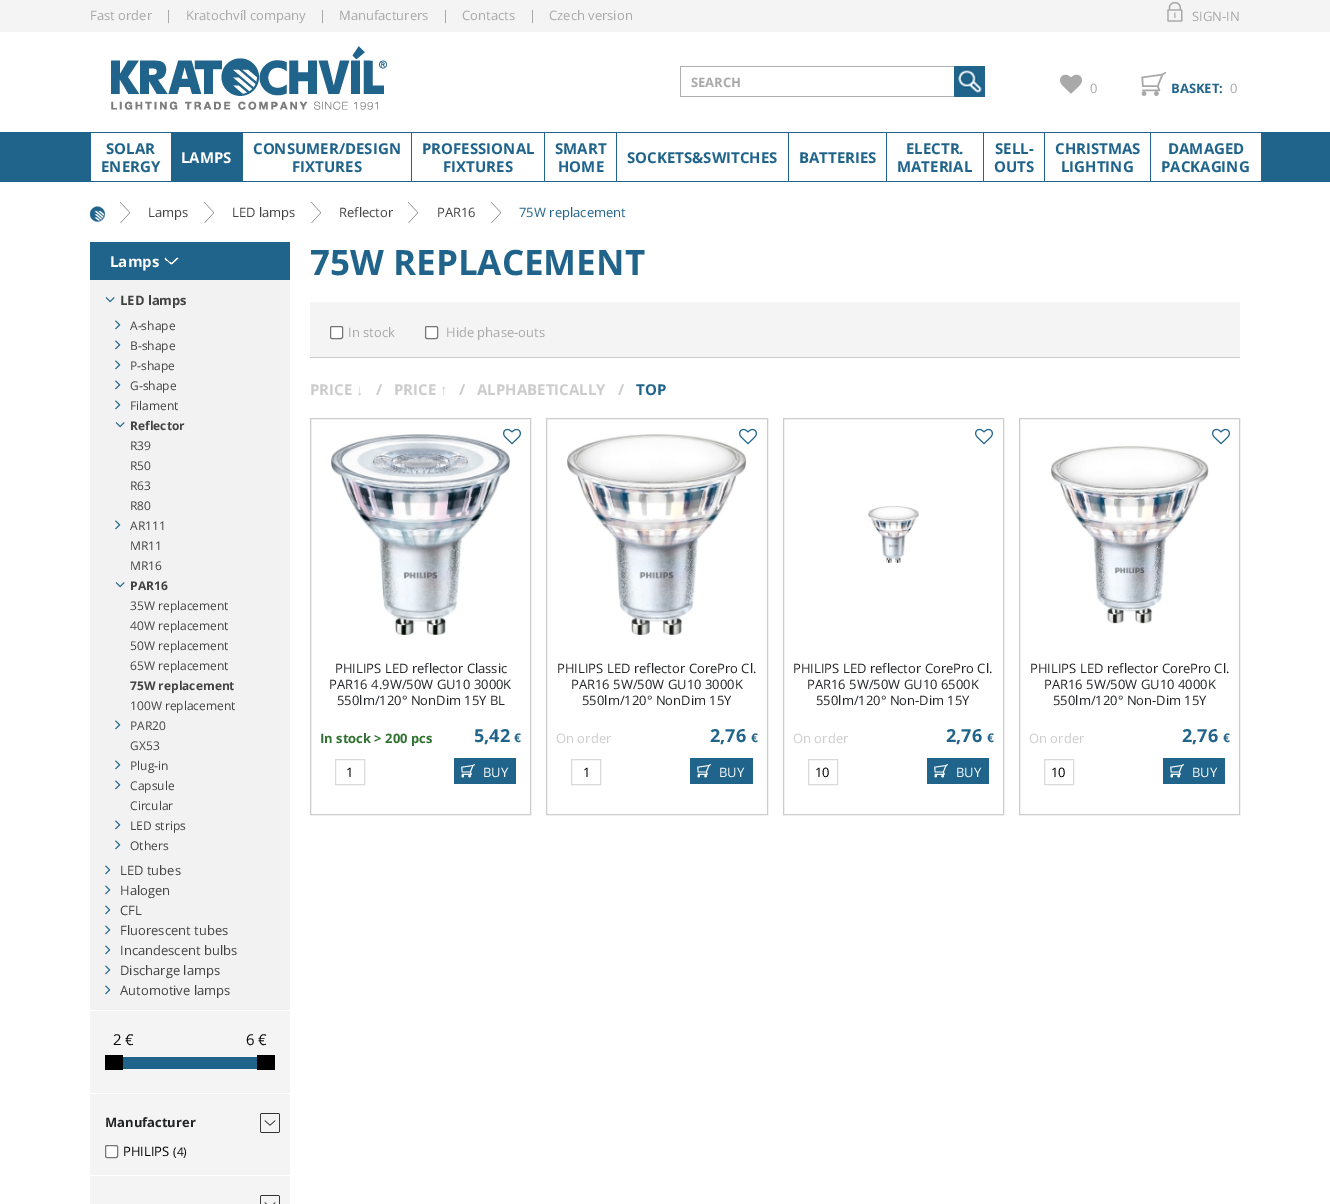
%!PS
<< /PageSize [1330 1204] >> setpagedevice
/fl/fill load def
/st/stroke load def
/gs/gsave load def
/gr/grestore load def
/co { dup -16 bitshift 255 div exch dup -8 bitshift 255 and 255 div exch 255 and 255 div setrgbcolor } def
/fn { [ exch dup neg 0 0 3 -1 roll 0 0 ] selectfont } def
/tx { co fn moveto show } def
/bx { co rectfill } def
/rr { 5 dict begin { /r /h /w /y /x } { exch def } forall
  x r add y moveto x w add y 2 copy h add r arct x w add y h add x 1 index r arct
  x y h add x y r arct x y 2 copy exch w add exch r arct closepath end } def
/im { 5 dict begin { /h /w /y /x /name } { exch def } forall
  gsave x y translate w h scale
  w h 8 [w 0 0 h 0 0] name (r) file false 3 colorimage grestore end } def
0 1204 translate 1 -1 scale
4 setmiterlimit
0 0 1330 1204 16#FFFFFF bx
0 0 1330 32 16#F4F4F4 bx
(media/1.raw) 1167 2 16 20 im
(media/2.raw) 111 46 276 64 im
680 66 275 1 16#AFAFAF bx
680 96 275 1 16#AFAFAF bx
680 66 1 31 16#AFAFAF bx
(media/3.raw) 954 66 31 31 im
(media/4.raw) 1060 74 22 20 im
(media/5.raw) 1141 72 25 24 im
0 132 1330 50 16#20648B bx
91 133 80 48 16#FFFFFF bx
243 133 168 48 16#FFFFFF bx
412 133 132 48 16#FFFFFF bx
545 133 71 48 16#FFFFFF bx
617 133 171 48 16#FFFFFF bx
789 133 97 48 16#FFFFFF bx
887 133 96 48 16#FFFFFF bx
984 133 60 48 16#FFFFFF bx
1045 133 105 48 16#FFFFFF bx
1151 133 110 48 16#FFFFFF bx
(media/6.raw) 90 206 15 16 im
(media/7.raw) 120 202 10 21 im
(media/7.raw) 204 202 10 21 im
(media/7.raw) 311 202 10 21 im
(media/7.raw) 408 202 10 21 im
(media/7.raw) 491 202 10 21 im
90 280 200 730 16#F2F2F2 bx
90 242 200 38 16#20648B bx
(media/8.raw) 164 257 15 8 im
(media/9.raw) 105 297 10 6 im
(media/10.raw) 115 320 6 10 im
(media/10.raw) 115 340 6 10 im
(media/10.raw) 115 360 6 10 im
(media/10.raw) 115 380 6 10 im
(media/10.raw) 115 400 6 10 im
(media/9.raw) 115 422 10 6 im
(media/10.raw) 115 520 6 10 im
(media/9.raw) 115 582 10 6 im
(media/10.raw) 115 720 6 10 im
(media/10.raw) 115 760 6 10 im
(media/10.raw) 115 780 6 10 im
(media/10.raw) 115 820 6 10 im
(media/10.raw) 115 840 6 10 im
(media/10.raw) 105 865 6 10 im
(media/10.raw) 105 885 6 10 im
(media/10.raw) 105 905 6 10 im
(media/10.raw) 105 925 6 10 im
(media/10.raw) 105 945 6 10 im
(media/10.raw) 105 965 6 10 im
(media/10.raw) 105 985 6 10 im
90 1011 200 82 16#F4F4F4 bx
105 1055 18 15 16#000000 bx
123 1057 134 12 16#20648B bx
257 1055 18 15 16#000000 bx
90 1094 200 81 16#F4F4F4 bx
(media/11.raw) 260 1113 20 20 im
16#FFFFFF co
105.5 1145.5 12 12 1.5 rr gs fl gr
16#767676 co
st
90 1176 200 28 16#F4F4F4 bx
(media/12.raw) 260 1195 20 9 im
310 302 930 55 16#F4F4F4 bx
310 357 930 1 16#CCCCCC bx
16#FFFFFF co
330.5 326.5 12 12 1.5 rr gs fl gr
16#767676 co
st
16#FFFFFF co
425.5 326.5 12 12 1.5 rr gs fl gr
16#767676 co
st
16#CCCCCC co
310.5 418.5 220 396 rectstroke
(media/13.raw) 331 434 179 201 im
(media/14.raw) 503 428 18 17 im
16#DADADA co
335.5 759.5 29 25 rectstroke
454 758 62 26 16#20648B bx
(media/15.raw) 461 764 14 14 im
16#CCCCCC co
546.5 418.5 221 396 rectstroke
(media/16.raw) 567 434 180 201 im
(media/17.raw) 739 428 18 17 im
16#DADADA co
571.5 759.5 29 25 rectstroke
690 758 63 26 16#20648B bx
(media/15.raw) 697 764 14 14 im
16#CCCCCC co
783.5 418.5 220 396 rectstroke
(media/18.raw) 975 428 18 17 im
(media/19.raw) 868 506 51 58 im
16#DADADA co
808.5 759.5 29 25 rectstroke
927 758 62 26 16#20648B bx
(media/15.raw) 934 764 14 14 im
16#CCCCCC co
1019.5 418.5 220 396 rectstroke
(media/18.raw) 1212 428 18 17 im
(media/20.raw) 1051 445 158 179 im
16#DADADA co
1044.5 759.5 29 25 rectstroke
1163 758 62 26 16#20648B bx
(media/15.raw) 1170 764 14 14 im
(Fast order) 90 20 /OpenSans-Regular 13 16#A9A9A9 tx
(|) 165 20 /OpenSans-Regular 13 16#A9A9A9 tx
(Kratochvíl company) 186 20 /OpenSans-Regular 13 16#A9A9A9 tx
(|) 319 20 /OpenSans-Regular 13 16#A9A9A9 tx
(Manufacturers) 339 20 /OpenSans-Regular 13 16#A9A9A9 tx
(|) 442 20 /OpenSans-Regular 13 16#A9A9A9 tx
(Contacts) 462 20 /OpenSans-Regular 13 16#A9A9A9 tx
(|) 529 20 /OpenSans-Regular 13 16#A9A9A9 tx
(Czech version) 549 20 /OpenSans-Regular 13 16#A9A9A9 tx
(SIGN-IN) 1192 21 /OpenSans-Regular 13 16#A9A9A9 tx
(SEARCH) 691 87 /OpenSans-Bold 13 16#A9A9A9 tx
(0) 1090 93 /OpenSans-Regular 13 16#A9A9A9 tx
(BASKET:) 1171 93 /OpenSans-Bold 13 16#20648B tx
(0) 1230 93 /OpenSans-Regular 13 16#A9A9A9 tx
(SOLAR) 106 154 /OpenSans-Bold 15 16#20648B tx
(ENERGY) 101 172 /OpenSans-Bold 15 16#20648B tx
(LAMPS) 181 163 /OpenSans-Bold 15 16#FFFFFF tx
(CONSUMER/DESIGN) 253 154 /OpenSans-Bold 15 16#20648B tx
(FIXTURES) 292 172 /OpenSans-Bold 15 16#20648B tx
(PROFESSIONAL) 422 154 /OpenSans-Bold 15 16#20648B tx
(FIXTURES) 443 172 /OpenSans-Bold 15 16#20648B tx
(SMART) 555 154 /OpenSans-Bold 15 16#20648B tx
(HOME) 558 172 /OpenSans-Bold 15 16#20648B tx
(SOCKETS&SWITCHES) 627 163 /OpenSans-Bold 15 16#20648B tx
(BATTERIES) 799 163 /OpenSans-Bold 15 16#20648B tx
(ELECTR.) 906 154 /OpenSans-Bold 15 16#20648B tx
(MATERIAL) 897 172 /OpenSans-Bold 15 16#20648B tx
(SELL-) 995 154 /OpenSans-Bold 15 16#20648B tx
(OUTS) 994 172 /OpenSans-Bold 15 16#20648B tx
(CHRISTMAS) 1055 154 /OpenSans-Bold 15 16#20648B tx
(LIGHTING) 1061 172 /OpenSans-Bold 15 16#20648B tx
(DAMAGED) 1168 154 /OpenSans-Bold 15 16#20648B tx
(PACKAGING) 1161 172 /OpenSans-Bold 15 16#20648B tx
(Lamps) 148 217 /OpenSans-Regular 13 16#434343 tx
(LED lamps) 232 217 /OpenSans-Regular 13 16#434343 tx
(Reflector) 339 217 /OpenSans-Regular 13 16#434343 tx
(PAR16) 437 217 /OpenSans-Regular 13 16#434343 tx
(75W replacement) 519 217 /OpenSans-Regular 13 16#20648B tx
(Lamps) 110 267 /OpenSans-Bold 15 16#FFFFFF tx
(LED lamps) 120 305 /OpenSans-Bold 13 16#434343 tx
(A-shape) 130 330 /OpenSans-Regular 12 16#434343 tx
(B-shape) 130 350 /OpenSans-Regular 12 16#434343 tx
(P-shape) 130 370 /OpenSans-Regular 12 16#434343 tx
(G-shape) 130 390 /OpenSans-Regular 12 16#434343 tx
(Filament) 130 410 /OpenSans-Regular 12 16#434343 tx
(Reflector) 130 430 /OpenSans-Bold 12 16#434343 tx
(R39) 130 450 /OpenSans-Regular 12 16#434343 tx
(R50) 130 470 /OpenSans-Regular 12 16#434343 tx
(R63) 130 490 /OpenSans-Regular 12 16#434343 tx
(R80) 130 510 /OpenSans-Regular 12 16#434343 tx
(AR111) 130 530 /OpenSans-Regular 12 16#434343 tx
(MR11) 130 550 /OpenSans-Regular 12 16#434343 tx
(MR16) 130 570 /OpenSans-Regular 12 16#434343 tx
(PAR16) 130 590 /OpenSans-Bold 12 16#434343 tx
(35W replacement) 130 610 /OpenSans-Regular 12 16#434343 tx
(40W replacement) 130 630 /OpenSans-Regular 12 16#434343 tx
(50W replacement) 130 650 /OpenSans-Regular 12 16#434343 tx
(65W replacement) 130 670 /OpenSans-Regular 12 16#434343 tx
(75W replacement) 130 690 /OpenSans-Bold 12 16#434343 tx
(100W replacement) 130 710 /OpenSans-Regular 12 16#434343 tx
(PAR20) 130 730 /OpenSans-Regular 12 16#434343 tx
(GX53) 130 750 /OpenSans-Regular 12 16#434343 tx
(Plug-in) 130 770 /OpenSans-Regular 12 16#434343 tx
(Capsule) 130 790 /OpenSans-Regular 12 16#434343 tx
(Circular) 130 810 /OpenSans-Regular 12 16#434343 tx
(LED strips) 130 830 /OpenSans-Regular 12 16#434343 tx
(Others) 130 850 /OpenSans-Regular 12 16#434343 tx
(LED tubes) 120 875 /OpenSans-Regular 13 16#434343 tx
(Halogen) 120 895 /OpenSans-Regular 13 16#434343 tx
(CFL) 120 915 /OpenSans-Regular 13 16#434343 tx
(Fluorescent tubes) 120 935 /OpenSans-Regular 13 16#434343 tx
(Incandescent bulbs) 120 955 /OpenSans-Regular 13 16#434343 tx
(Discharge lamps) 120 975 /OpenSans-Regular 13 16#434343 tx
(Automotive lamps) 120 995 /OpenSans-Regular 13 16#434343 tx
(2 €) 113 1045 /OpenSans-Regular 15 16#090909 tx
(6 €) 246 1045 /OpenSans-Regular 15 16#090909 tx
(Manufacturer) 105 1127 /OpenSans-Bold 13 16#222426 tx
(PHILIPS) 123 1156 /OpenSans-Regular 13 16#000000 tx
(\(4\)) 173 1156 /OpenSans-Regular 12 16#000000 tx
(75W REPLACEMENT) 310 275 /OpenSans-Bold 35 16#20648B tx
(In stock) 348 337 /OpenSans-Regular 13 16#A9A9A9 tx
(Hide phase-outs) 446 337 /OpenSans-Regular 13 16#A9A9A9 tx
(PRICE) 310 395 /OpenSans-Bold 15 16#CCCCCC tx
(↓) 356 395 /LiberationSans-Bold 15 16#CCCCCC tx
(/) 376 395 /OpenSans-Bold 15 16#CCCCCC tx
(PRICE) 394 395 /OpenSans-Bold 15 16#CCCCCC tx
(↑) 440 395 /LiberationSans-Bold 15 16#CCCCCC tx
(/) 459 395 /OpenSans-Bold 15 16#CCCCCC tx
(ALPHABETICALLY) 477 395 /OpenSans-Bold 15 16#CCCCCC tx
(/) 618 395 /OpenSans-Bold 15 16#CCCCCC tx
(TOP) 636 395 /OpenSans-Bold 15 16#20648B tx
(PHILIPS LED reflector Classic) 335 673 /OpenSans-Regular 13 16#222426 tx
(PAR16 4.9W/50W GU10 3000K) 329 689 /OpenSans-Regular 13 16#222426 tx
(550lm/120° NonDim 15Y BL) 337 705 /OpenSans-Regular 13 16#222426 tx
(In stock > 200 pcs) 320 743 /OpenSans-Bold 13 16#307230 tx
(5,42) 474 742 /OpenSans-Bold 18 16#20648B tx
(€) 514 742 /OpenSans-Bold 12 16#20648B tx
(1) 346 777 /OpenSans-Regular 13 16#000000 tx
(BUY) 483 777 /OpenSans-Regular 13 16#FFFFFF tx
(PHILIPS LED reflector CorePro Cl.) 557 673 /OpenSans-Regular 13 16#222426 tx
(PAR16 5W/50W GU10 3000K) 571 689 /OpenSans-Regular 13 16#222426 tx
(550lm/120° NonDim 15Y) 582 705 /OpenSans-Regular 13 16#222426 tx
(On order) 556 743 /OpenSans-Regular 13 16#CCCCCC tx
(2,76) 710 742 /OpenSans-Bold 18 16#20648B tx
(€) 751 742 /OpenSans-Bold 12 16#20648B tx
(1) 583 777 /OpenSans-Regular 13 16#000000 tx
(BUY) 719 777 /OpenSans-Regular 13 16#FFFFFF tx
(PHILIPS LED reflector CorePro Cl.) 793 673 /OpenSans-Regular 13 16#222426 tx
(PAR16 5W/50W GU10 6500K) 807 689 /OpenSans-Regular 13 16#222426 tx
(550lm/120° Non-Dim 15Y) 816 705 /OpenSans-Regular 13 16#222426 tx
(On order) 793 743 /OpenSans-Regular 13 16#CCCCCC tx
(2,76) 946 742 /OpenSans-Bold 18 16#20648B tx
(€) 987 742 /OpenSans-Bold 12 16#20648B tx
(10) 815 777 /OpenSans-Regular 13 16#000000 tx
(BUY) 956 777 /OpenSans-Regular 13 16#FFFFFF tx
(PHILIPS LED reflector CorePro Cl.) 1030 673 /OpenSans-Regular 13 16#222426 tx
(PAR16 5W/50W GU10 4000K) 1044 689 /OpenSans-Regular 13 16#222426 tx
(550lm/120° Non-Dim 15Y) 1053 705 /OpenSans-Regular 13 16#222426 tx
(On order) 1029 743 /OpenSans-Regular 13 16#CCCCCC tx
(2,76) 1182 742 /OpenSans-Bold 18 16#20648B tx
(€) 1223 742 /OpenSans-Bold 12 16#20648B tx
(10) 1051 777 /OpenSans-Regular 13 16#000000 tx
(BUY) 1192 777 /OpenSans-Regular 13 16#FFFFFF tx
showpage
